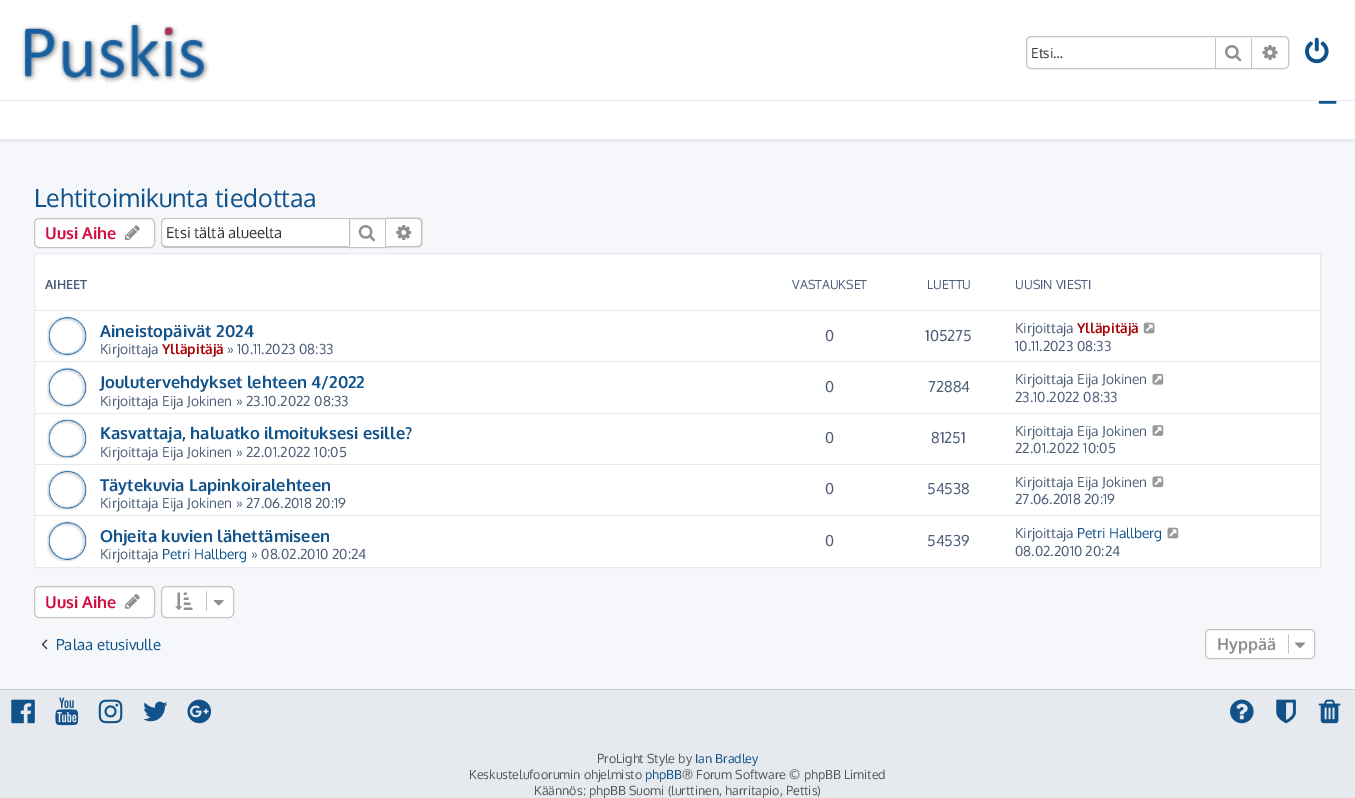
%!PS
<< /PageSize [1355 798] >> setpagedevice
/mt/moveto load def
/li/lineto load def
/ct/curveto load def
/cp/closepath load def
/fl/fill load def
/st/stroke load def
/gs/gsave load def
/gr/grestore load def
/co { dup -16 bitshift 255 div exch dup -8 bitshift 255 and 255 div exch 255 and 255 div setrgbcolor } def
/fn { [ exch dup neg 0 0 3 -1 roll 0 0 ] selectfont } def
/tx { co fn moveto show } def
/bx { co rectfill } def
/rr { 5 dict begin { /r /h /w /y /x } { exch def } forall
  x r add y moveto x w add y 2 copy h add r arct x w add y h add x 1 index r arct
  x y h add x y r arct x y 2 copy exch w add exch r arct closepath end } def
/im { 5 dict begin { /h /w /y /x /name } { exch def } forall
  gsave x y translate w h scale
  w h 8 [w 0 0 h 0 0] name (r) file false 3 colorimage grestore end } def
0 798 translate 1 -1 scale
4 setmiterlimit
0 0 1355 798 16#F5F7FA bx
0 0 1355 100 16#FFFFFF bx
0 100 1355 1 16#E6E9ED bx
(media/1.raw) 22 22 187 62 im
16#C7C3BF co
1026.5 36.5 262 32 4.5 rr st
1251 38 1 30 16#C7C3BF bx
1215 38 1 30 16#C7C3BF bx
(media/2.raw) 1225 45 17 17 im
16#FFFFFF co
1253 38 mt 1283 38 li 1286 38 1288 40 1288 43 ct 1288 63 li 1288 66 1286 68 1283 68 ct 1253 68 li cp fl
(media/3.raw) 1262 45 16 15 im
(media/4.raw) 1305 37 24 27 im
0 101 1355 38 16#FFFFFF bx
0 139 1355 3 16#E6E9ED bx
(media/5.raw) 1318 101 19 3 im
16#FFFFFF co
34.5 218.5 120 29 4.5 rr gs fl gr
16#C7C3BF co
st
(media/6.raw) 125 225 15 15 im
16#FFFFFF co
167 219 mt 349 219 li 349 246 li 167 246 li 165 246 163 244 163 242 ct 163 223 li 163 221 165 219 167 219 ct cp fl
16#C7C3BF co
166 218 mt 349 218 li 349 248 li 166 248 li 163 248 161 245 161 242 ct 161 222 li 161 220 163 218 166 218 ct cp 166 219 mt 349 219 li 349 246 li 166 246 li 164 246 162 245 162 242 ct 162 222 li 162 220 164 219 166 219 ct cp eofill
16#FFFFFF co
349.5 218.5 mt 385.5 218.5 li 385.5 247.5 li 349.5 247.5 li cp gs fl gr
16#C7C3BF co
st
(media/7.raw) 358 225 17 17 im
16#FFFFFF co
386 219 mt 417 219 li 419 219 421 221 421 223 ct 421 242 li 421 244 419 246 417 246 ct 386 246 li cp fl
16#C7C3BF co
386 217.5 mt 417.5 217.5 li 420.5 217.5 422.5 219.5 422.5 222.5 ct 422.5 242.5 li 422.5 245.5 420.5 247.5 417.5 247.5 ct 386 247.5 li cp 386 219 mt 417.5 219 li 419.5 219 421 220.5 421 222.5 ct 421 242.5 li 421 244.5 419.5 246 417.5 246 ct 386 246 li cp eofill
(media/8.raw) 396 225 16 15 im
16#FFFFFF co
34.5 253.5 mt 1320.5 253.5 li 1320.5 567.5 li 34.5 567.5 li cp gs fl gr
16#E6E9ED co
st
35 310 1285 1 16#E6E9ED bx
(media/9.raw) 47 316 40 40 im
(media/10.raw) 1143 322 12 12 im
35 361 1285 1 16#E6E9ED bx
(media/11.raw) 47 367 40 41 im
(media/12.raw) 1152 373 12 12 im
35 413 1285 1 16#E6E9ED bx
(media/13.raw) 47 418 40 41 im
(media/14.raw) 1152 425 12 11 im
35 464 1285 1 16#E6E9ED bx
(media/15.raw) 47 470 40 40 im
(media/16.raw) 1152 476 12 12 im
35 515 1285 1 16#E6E9ED bx
(media/17.raw) 47 521 40 40 im
(media/18.raw) 1167 527 12 12 im
16#FFFFFF co
34.5 586.5 120 31 4.5 rr gs fl gr
16#C7C3BF co
st
(media/19.raw) 125 594 15 15 im
16#FFFFFF co
161.5 586.5 72 31 4.5 rr gs fl gr
16#C7C3BF co
st
(media/20.raw) 175 592 18 18 im
206 591 1 20 16#C7C3BF bx
(media/21.raw) 213 600 11 6 im
(media/22.raw) 41 639 7 11 im
16#FFFFFF co
1205.5 629.5 109 29 4.5 rr gs fl gr
16#C7C3BF co
st
1288 634 1 20 16#C7C3BF bx
(media/23.raw) 1295 642 10 6 im
0 690 1355 108 16#E6E9ED bx
0 689 1355 1 16#CCCCCC bx
(media/24.raw) 11 699 24 25 im
(media/25.raw) 55 697 24 29 im
(media/26.raw) 98 699 25 25 im
(media/27.raw) 143 701 25 21 im
(media/28.raw) 187 699 25 25 im
(media/29.raw) 1230 699 24 25 im
(media/30.raw) 1276 699 20 25 im
(media/31.raw) 1318 699 23 25 im
(Etsi…) 1031 58 /Oxygen-Regular 13.75 16#333333 tx
(Lehtitoimikunta tiedottaa) 34 207 /Oxygen-Regular 25 16#105289 tx
(Uusi Aihe) 45 239 /Oxygen-Bold 16.25 16#D31141 tx
(Etsi tältä alueelta) 166 238 /Oxygen-Regular 15 16#333333 tx
(AIHEET) 45 289 /Oxygen-Bold 12.5 16#4C5D77 tx
(VASTAUKSET) 792 289 /Oxygen-Regular 12.5 16#4C5D77 tx
(LUETTU) 927 289 /Oxygen-Regular 12.5 16#4C5D77 tx
(UUSIN VIESTI) 1015 289 /Oxygen-Regular 12.5 16#4C5D77 tx
(Aineistopäivät 2024) 100 337 /Oxygen-Bold 16.5 16#105289 tx
(Kirjoittaja) 100 354 /Oxygen-Regular 13.75 16#4C5D77 tx
(Ylläpitäjä) 162 354 /Oxygen-Bold 13.75 16#AA0000 tx
(» 10.11.2023 08:33) 227 354 /Oxygen-Regular 13.75 16#4C5D77 tx
(0) 825 341 /Oxygen-Regular 15 16#4C5D77 tx
(105275) 925 341 /Oxygen-Regular 15 16#4C5D77 tx
(Kirjoittaja) 1015 333 /Oxygen-Regular 13.75 16#4C5D77 tx
(Ylläpitäjä) 1077 333 /Oxygen-Bold 13.75 16#AA0000 tx
(10.11.2023 08:33) 1015 351 /Oxygen-Regular 13.75 16#4C5D77 tx
(Joulutervehdykset lehteen 4/2022) 100 388 /Oxygen-Bold 16.5 16#105289 tx
(Kirjoittaja Eija Jokinen » 23.10.2022 08:33) 100 406 /Oxygen-Regular 13.75 16#4C5D77 tx
(0) 825 392 /Oxygen-Regular 15 16#4C5D77 tx
(72884) 928 392 /Oxygen-Regular 15 16#4C5D77 tx
(Kirjoittaja Eija Jokinen) 1015 384 /Oxygen-Regular 13.75 16#4C5D77 tx
(23.10.2022 08:33) 1015 402 /Oxygen-Regular 13.75 16#4C5D77 tx
(Kasvattaja, haluatko ilmoituksesi esille?) 100 439 /Oxygen-Bold 16.5 16#105289 tx
(Kirjoittaja Eija Jokinen » 22.01.2022 10:05) 100 457 /Oxygen-Regular 13.75 16#4C5D77 tx
(0) 825 443 /Oxygen-Regular 15 16#4C5D77 tx
(81251) 931 443 /Oxygen-Regular 15 16#4C5D77 tx
(Kirjoittaja Eija Jokinen) 1015 436 /Oxygen-Regular 13.75 16#4C5D77 tx
(22.01.2022 10:05) 1015 453 /Oxygen-Regular 13.75 16#4C5D77 tx
(Täytekuvia Lapinkoiralehteen) 100 491 /Oxygen-Bold 16.5 16#105289 tx
(Kirjoittaja Eija Jokinen » 27.06.2018 20:19) 100 508 /Oxygen-Regular 13.75 16#4C5D77 tx
(0) 825 494 /Oxygen-Regular 15 16#4C5D77 tx
(54538) 927 494 /Oxygen-Regular 15 16#4C5D77 tx
(Kirjoittaja Eija Jokinen) 1015 487 /Oxygen-Regular 13.75 16#4C5D77 tx
(27.06.2018 20:19) 1015 504 /Oxygen-Regular 13.75 16#4C5D77 tx
(Ohjeita kuvien lähettämiseen) 100 542 /Oxygen-Bold 16.5 16#105289 tx
(Kirjoittaja) 100 559 /Oxygen-Regular 13.75 16#4C5D77 tx
(Petri Hallberg) 162 559 /Oxygen-Regular 13.75 16#105289 tx
(» 08.02.2010 20:24) 251 559 /Oxygen-Regular 13.75 16#4C5D77 tx
(0) 825 546 /Oxygen-Regular 15 16#4C5D77 tx
(54539) 927 546 /Oxygen-Regular 15 16#4C5D77 tx
(Kirjoittaja) 1015 538 /Oxygen-Regular 13.75 16#4C5D77 tx
(Petri Hallberg) 1077 538 /Oxygen-Regular 13.75 16#105289 tx
(08.02.2010 20:24) 1015 556 /Oxygen-Regular 13.75 16#4C5D77 tx
(Uusi Aihe) 45 608 /Oxygen-Bold 16.25 16#D31141 tx
(Palaa etusivulle) 56 650 /Oxygen-Regular 15 16#105289 tx
(Hyppää) 1217 650 /Oxygen-Bold 16.25 16#8F8F8F tx
(ProLight Style by) 597 763 /Oxygen-Regular 12.5 16#555555 tx
(Ian Bradley) 695 763 /Oxygen-Regular 12.5 16#105289 tx
(Keskustelufoorumin ohjelmisto) 469 779 /Oxygen-Regular 12.5 16#555555 tx
(phpBB) 645 779 /Oxygen-Regular 12.5 16#105289 tx
(® Forum Software © phpBB Limited) 682 779 /Oxygen-Regular 12.5 16#555555 tx
(Käännös: phpBB Suomi \(lurttinen, harritapio, Pettis\)) 534 795 /Oxygen-Regular 12.5 16#555555 tx
showpage
